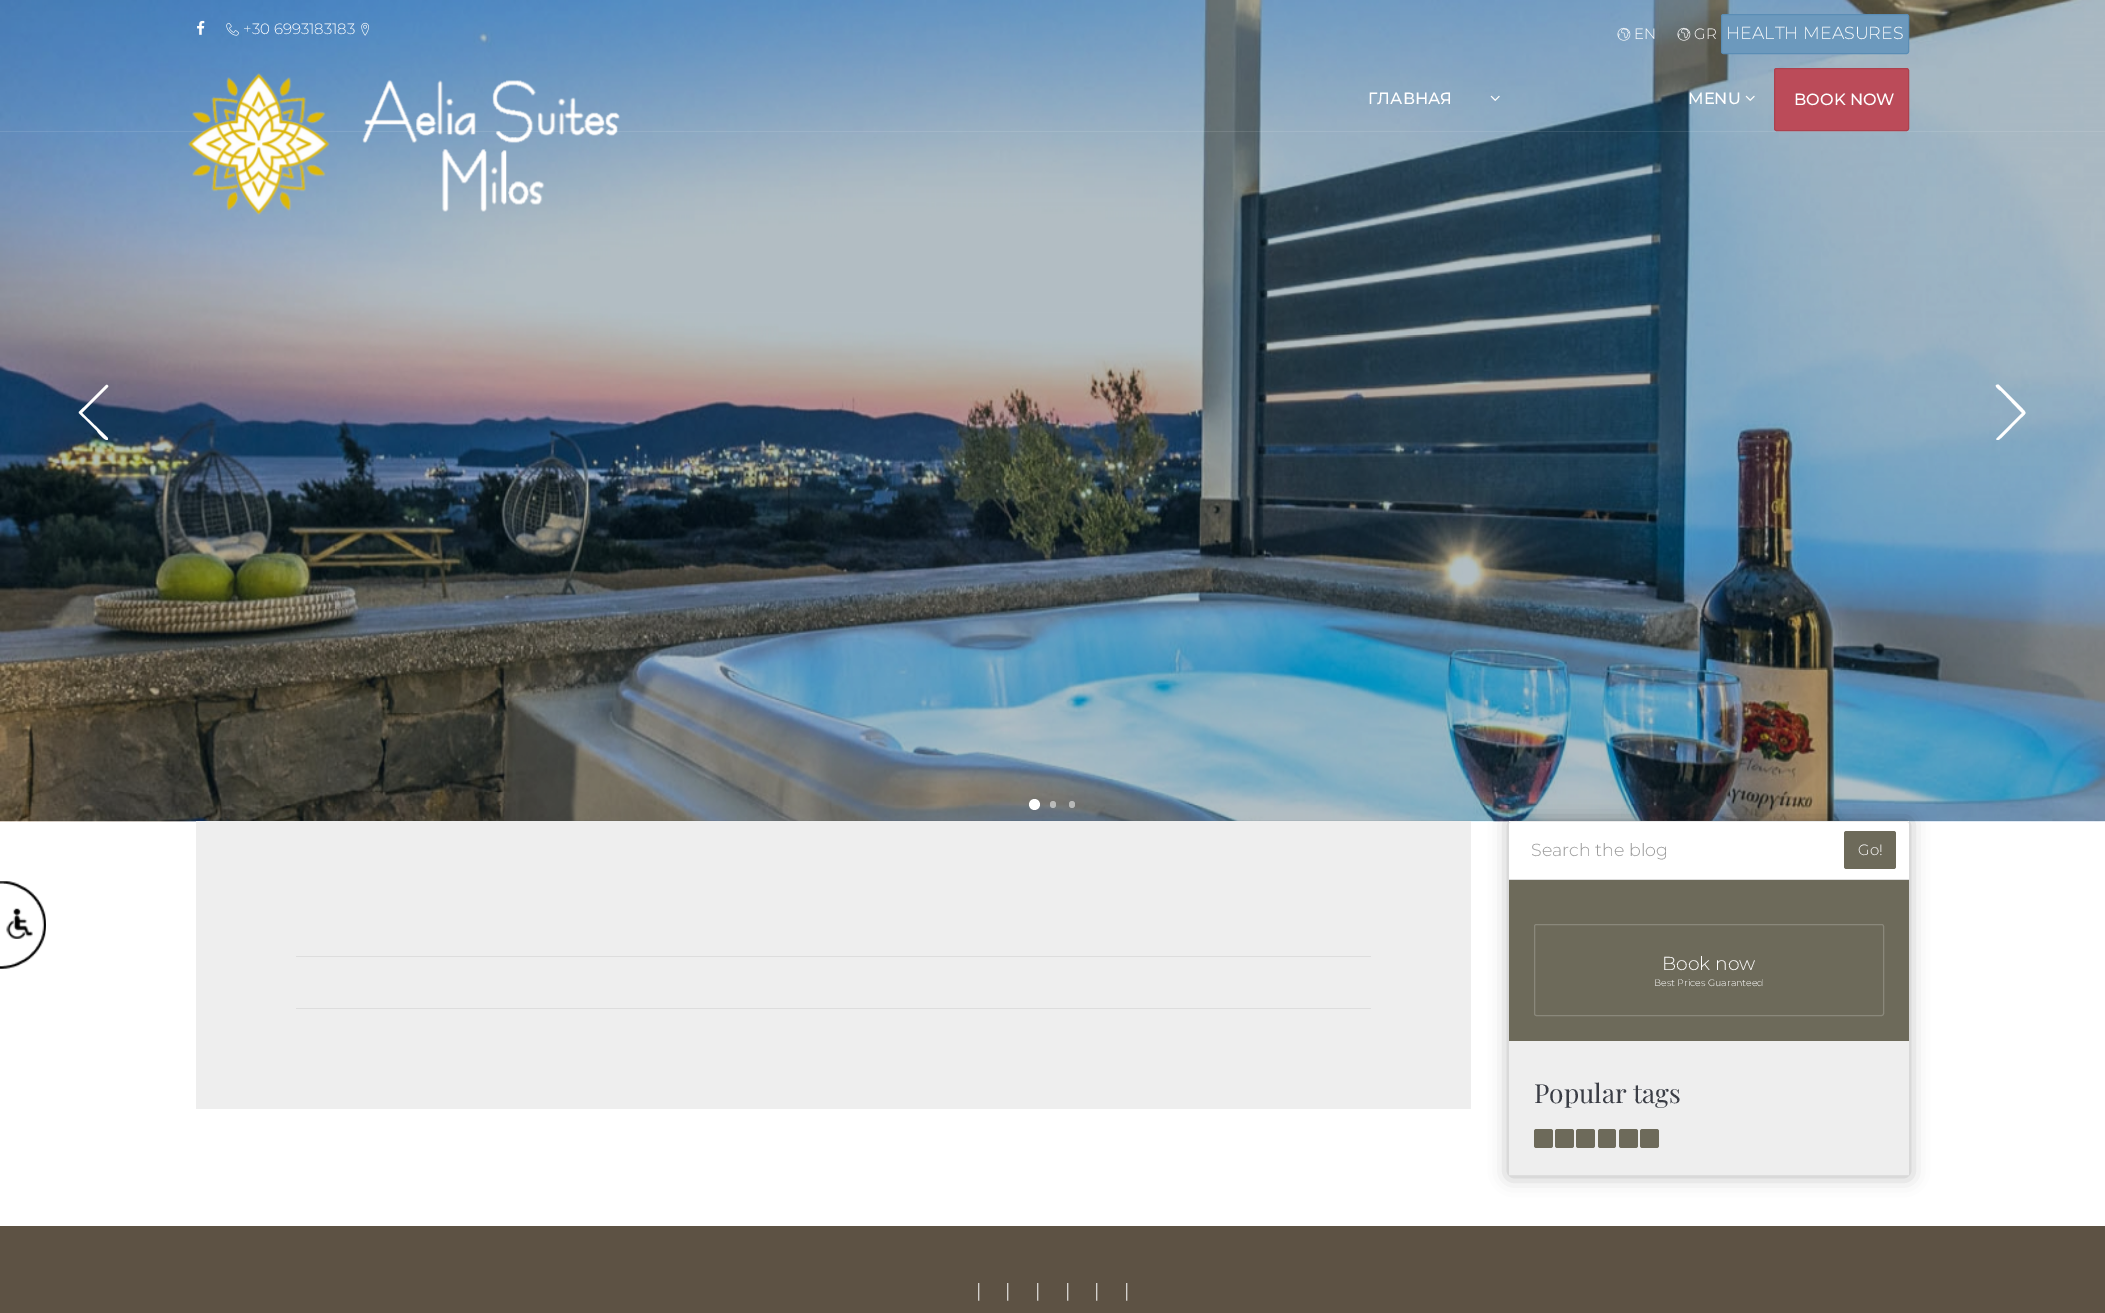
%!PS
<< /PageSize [2105 1313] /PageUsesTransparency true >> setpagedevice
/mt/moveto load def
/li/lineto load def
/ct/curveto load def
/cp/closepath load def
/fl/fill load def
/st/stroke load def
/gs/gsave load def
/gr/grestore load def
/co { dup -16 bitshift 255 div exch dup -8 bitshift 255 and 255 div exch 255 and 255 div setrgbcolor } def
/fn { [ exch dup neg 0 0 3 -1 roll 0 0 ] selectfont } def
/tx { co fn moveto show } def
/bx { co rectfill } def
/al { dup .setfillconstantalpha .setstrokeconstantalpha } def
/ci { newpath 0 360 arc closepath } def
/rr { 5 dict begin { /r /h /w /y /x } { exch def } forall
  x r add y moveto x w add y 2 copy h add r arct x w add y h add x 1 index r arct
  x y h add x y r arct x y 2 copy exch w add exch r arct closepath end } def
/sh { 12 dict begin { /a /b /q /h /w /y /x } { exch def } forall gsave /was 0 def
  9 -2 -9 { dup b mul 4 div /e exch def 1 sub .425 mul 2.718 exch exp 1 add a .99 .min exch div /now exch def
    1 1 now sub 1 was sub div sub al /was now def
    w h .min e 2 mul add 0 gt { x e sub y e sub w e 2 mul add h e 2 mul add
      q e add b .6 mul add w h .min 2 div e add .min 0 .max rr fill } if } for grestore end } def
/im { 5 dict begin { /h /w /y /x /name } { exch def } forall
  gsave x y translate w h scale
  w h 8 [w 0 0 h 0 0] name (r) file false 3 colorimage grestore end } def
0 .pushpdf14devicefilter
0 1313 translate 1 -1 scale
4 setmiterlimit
0 0 2105 1313 16#FFFFFF bx
(media/1.raw) 0 881 46 88 im
(media/2.raw) 0 0 2105 822 im
107 440 mt 108 440 108 439 108 438 ct 82 413 li 108 387 li 109 386 107 384 106 385 ct 84 407 li 77 414 77 411 84 418 ct 97 431 li 98 433 104 440 107 440 ct cp fl
1998 440 mt 1996 440 1996 439 1997 438 ct 2022 413 li 2001 391 li 1999 390 1995 387 1996 385 ct 1997 385 1998 384 1999 385 ct 2021 407 li 2027 414 2027 412 2021 418 ct 2012 427 li 2010 429 2000 440 1998 440 ct cp fl
1034.5 804.5 5.5 ci fl
0.5 al
1050 801 6 7 3 rr fl
1069 801 6 7 3 rr fl
0.1 al
0 131 2105 1 16#FFFFFF bx
1 al
(media/3.raw) 197 20 8 15 im
(media/4.raw) 226 22 13 14 im
(media/5.raw) 361 22 8 14 im
(media/6.raw) 1617 27 14 14 im
(media/7.raw) 1677 27 14 14 im
16#6C99BD co
1721.5 14.5 187 39 2 rr gs fl gr
16#5A8DB5 co
st
(media/8.raw) 188 73 432 142 im
(media/9.raw) 1490 95 10 6 im
(media/10.raw) 1745 95 10 6 im
16#BB4B59 co
1774.5 68.5 134 62 2 rr gs fl gr
16#AC414E co
st
196 821 1275 288 16#EEEEEE bx
296 956 1075 1 16#DDDDDD bx
296 1008 1075 1 16#DDDDDD bx
16#000000 co
1509 821 400 355 0 9.5 .3 sh
1509 1041 400 134 16#EEEEEE bx
1509 821 400 58 16#FFFFFF bx
1509 879 400 1 16#DDDDDD bx
16#ECECEC co
1511 822 mt 1907 822 li 1908 822 1909 823 1909 824 ct 1909 823 1909 821 1907 821 ct 1511 821 li 1509 822 li 1509 824 li 1509 823 1510 822 1511 822 ct cp fl
16#6D6A5A co
1844 831 52 38 2.5 rr fl
1509 880 400 161 16#6D6A5A bx
16#8A887B co
1534.5 924.5 349 91 2 rr st
1509 1175 400 1 16#DDDDDD bx
16#6D6A5A co
1534 1129 19 19 2.5 rr fl
1555 1129 19 19 2.5 rr fl
1576 1129 19 19 2.5 rr fl
1598 1129 18 19 2.5 rr fl
1619 1129 19 19 2.5 rr fl
1640 1129 19 19 2.5 rr fl
0 1226 2105 87 16#5D5244 bx
(+30 6993183183) 243 34 /Montserrat-Light 15 16#FFFFFF tx
(EN) 1634 39 /Montserrat-Light 15 16#FFFFFF tx
(GR) 1694 39 /Montserrat-Light 15 16#FFFFFF tx
(HEALTH MEASURES) 1726 39 /Montserrat-Light 17.5 16#FFFFFF tx
(ГЛАВНАЯ) 1368 104 /Montserrat-Medium 16.25 16#FFFFFF tx
(MENU) 1688 104 /Montserrat-Medium 16.25 16#FFFFFF tx
(BOOK NOW) 1794 105 /Montserrat-Medium 16.25 16#FFFFFF tx
(Search the blog) 1531 856 /Montserrat-Light 17.5 16#999999 tx
(Go!) 1858 855 /Montserrat-Light 15 16#FFFFFF tx
(Book now) 1662 970 /Montserrat-Light 18.75 16#FFFFFF tx
(Best Prices Guaranteed) 1654 986 /Montserrat-Light 9.4 16#FFFFFF tx
(Popular tags) 1534 1103 /PlayfairDisplay-Regular 26.25 16#3A3D45 tx
(|) 976 1297 /Montserrat-Light 18.75 16#FFFFFF tx
(|) 1005 1297 /Montserrat-Light 18.75 16#FFFFFF tx
(|) 1035 1297 /Montserrat-Light 18.75 16#FFFFFF tx
(|) 1065 1297 /Montserrat-Light 18.75 16#FFFFFF tx
(|) 1094 1297 /Montserrat-Light 18.75 16#FFFFFF tx
(|) 1124 1297 /Montserrat-Light 18.75 16#FFFFFF tx
.poppdf14devicefilter showpage
